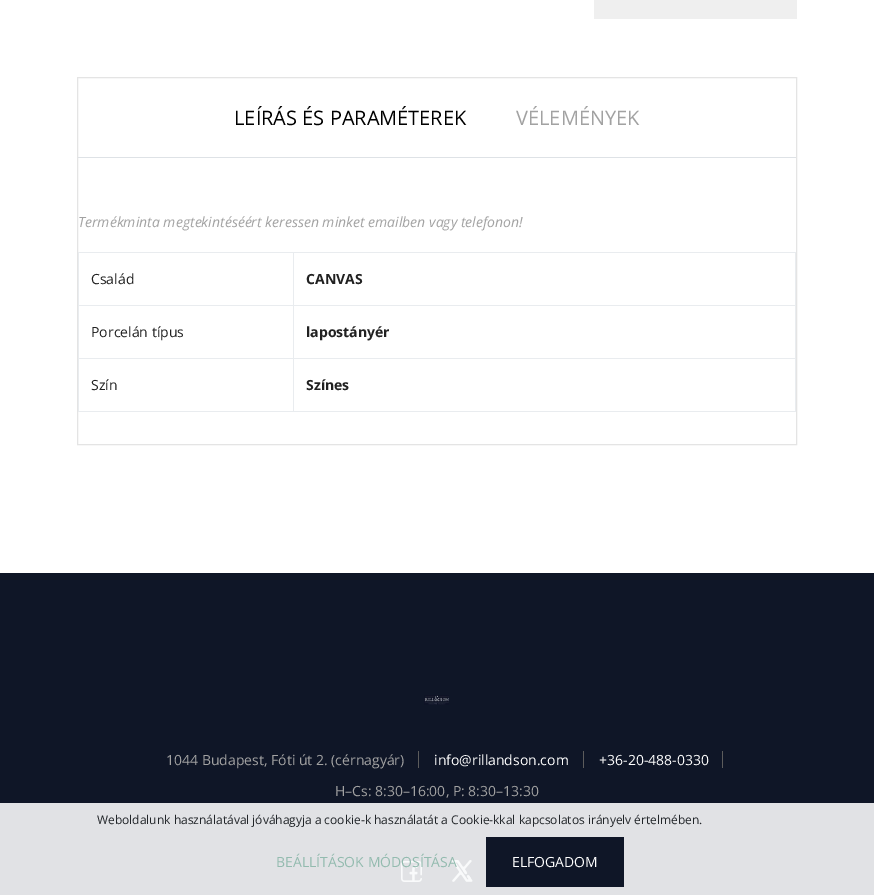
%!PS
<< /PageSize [874 895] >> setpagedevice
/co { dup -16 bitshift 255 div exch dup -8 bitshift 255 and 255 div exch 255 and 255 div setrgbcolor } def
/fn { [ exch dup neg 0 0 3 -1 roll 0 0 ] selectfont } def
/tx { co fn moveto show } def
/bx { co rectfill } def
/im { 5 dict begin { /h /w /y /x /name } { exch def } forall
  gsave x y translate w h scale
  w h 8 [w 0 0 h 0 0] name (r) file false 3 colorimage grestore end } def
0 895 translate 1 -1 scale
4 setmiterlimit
0 0 874 895 16#FFFFFF bx
594 0 203 19 16#EFEFEF bx
16#E4E4E4 co
77.5 77.5 719 367 rectstroke
78 157 718 1 16#DEE2E6 bx
78 252 718 1 16#E9ECEF bx
795 252 1 160 16#E9ECEF bx
78 411 718 1 16#E9ECEF bx
78 252 1 160 16#E9ECEF bx
293 305 503 1 16#E9ECEF bx
293 358 503 1 16#E9ECEF bx
293 358 1 54 16#E9ECEF bx
78 358 216 1 16#E9ECEF bx
293 305 1 54 16#E9ECEF bx
78 305 216 1 16#E9ECEF bx
293 252 1 54 16#E9ECEF bx
0 573 874 230 16#0F1627 bx
0 803 874 92 16#E1E2E5 bx
(media/1.raw) 424 695 25 10 im
418 751 1 17 16#5C5C5C bx
583 751 1 17 16#5C5C5C bx
722 751 1 17 16#5C5C5C bx
(media/2.raw) 401 861 21 21 im
(media/3.raw) 452 860 21 22 im
486 837 138 50 16#0F1627 bx
(LEÍRÁS ÉS PARAMÉTEREK) 234 125 /OpenSans-Regular 20 16#000000 tx
(VÉLEMÉNYEK) 516 125 /OpenSans-Regular 20 16#A2A2A2 tx
(Termékminta megtekintéséért keressen minket emailben vagy telefonon!) 78 227 /OpenSans-Italic 14 16#A2A2A2 tx
(Család) 91 284 /OpenSans-Regular 14 16#212121 tx
(CANVAS) 306 284 /OpenSans-Bold 14 16#212121 tx
(Porcelán típus) 91 337 /OpenSans-Regular 14 16#212121 tx
(lapostányér) 306 337 /OpenSans-Bold 14 16#212121 tx
(Szín) 91 390 /OpenSans-Regular 14 16#212121 tx
(Színes) 306 390 /OpenSans-Bold 14 16#212121 tx
(1044 Budapest, Fóti út 2. \(cérnagyár\)) 166 765 /OpenSans-Regular 14 16#A2A2A2 tx
(info@rillandson.com) 434 765 /OpenSans-Regular 14 16#FFFFFF tx
(+36-20-488-0330) 599 765 /OpenSans-Regular 14 16#FFFFFF tx
(H–Cs: 8:30–16:00, P: 8:30–13:30) 335 796 /OpenSans-Regular 14 16#A2A2A2 tx
(Weboldalunk használatával jóváhagyja a cookie-k használatát a Cookie-kkal kapcsolatos irányelv értelmében.) 97 824 /OpenSans-Regular 12 16#212529 tx
(BEÁLLÍTÁSOK MÓDOSÍTÁSA) 276 867 /OpenSans-Regular 14 16#93BBAF tx
(ELFOGADOM) 512 867 /OpenSans-Regular 14 16#FFFFFF tx
showpage
